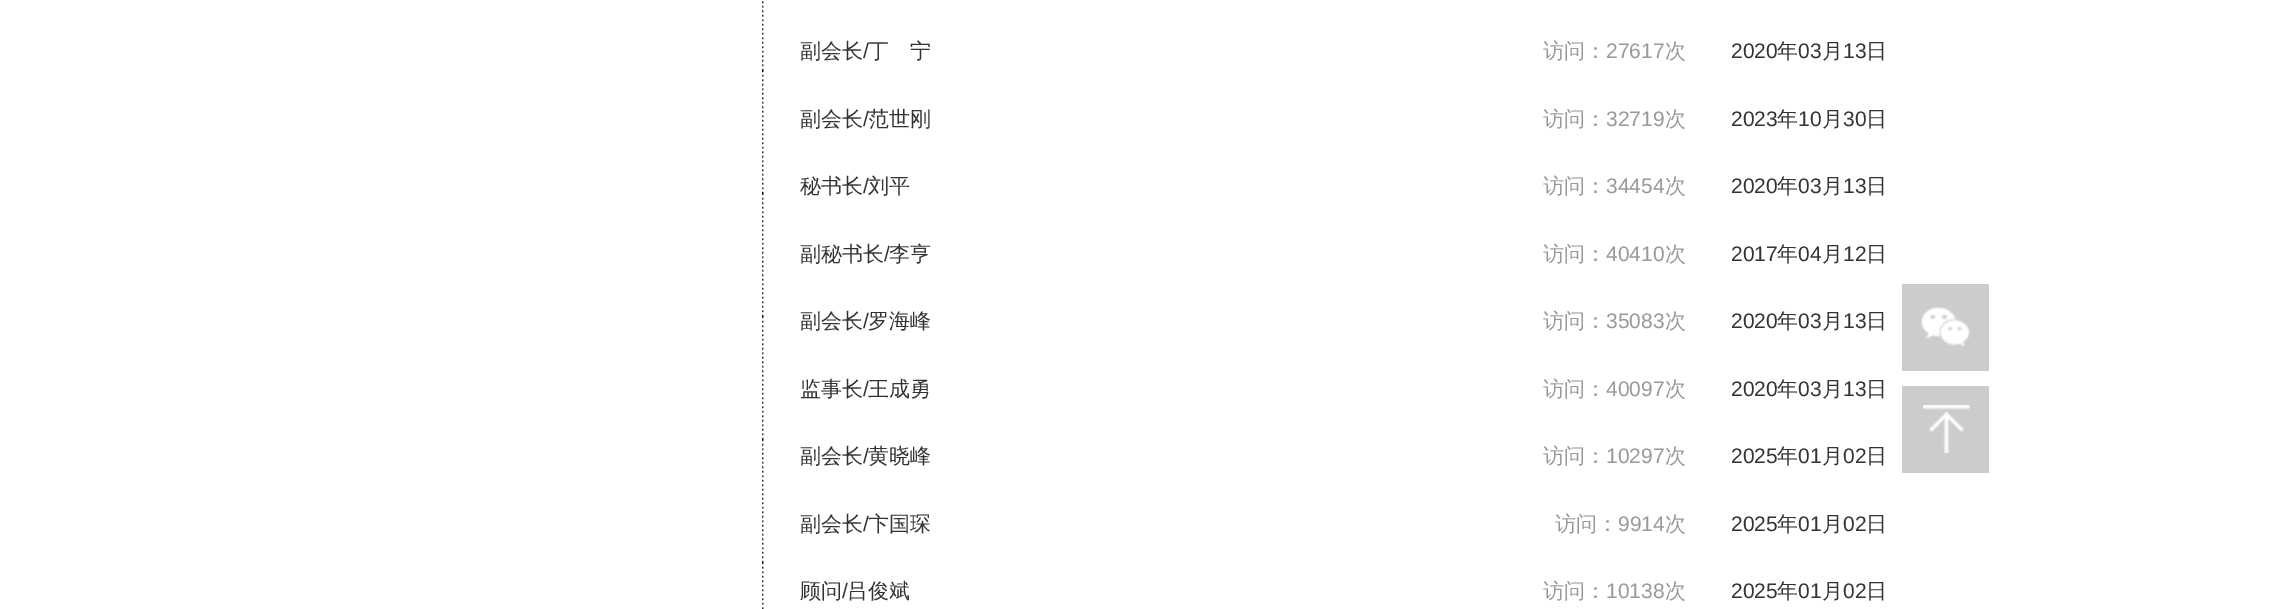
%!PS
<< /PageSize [2273 609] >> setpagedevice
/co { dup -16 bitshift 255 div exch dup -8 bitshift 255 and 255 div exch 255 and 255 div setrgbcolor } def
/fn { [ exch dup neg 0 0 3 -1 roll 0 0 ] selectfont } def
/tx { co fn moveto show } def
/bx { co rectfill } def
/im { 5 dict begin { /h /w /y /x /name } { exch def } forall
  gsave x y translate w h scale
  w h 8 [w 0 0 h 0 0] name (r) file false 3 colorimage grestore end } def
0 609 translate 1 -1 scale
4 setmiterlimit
0 0 2273 609 16#FFFFFF bx
(media/1.raw) 762 1 2 608 im
1902 284 87 87 16#CCCCCC bx
(media/2.raw) 1921 307 49 40 im
1902 386 87 87 16#CCCCCC bx
(media/3.raw) 1923 405 47 48 im
(副会长) 800 58 /WenQuanYiZenHei-Medium 21 16#333333 tx
(/) 863 58 /LiberationSans-Regular 21 16#333333 tx
(丁　宁) 868 58 /WenQuanYiZenHei-Medium 21 16#333333 tx
(访问：) 1543 58 /WenQuanYiZenHei-Medium 21 16#999999 tx
(27617) 1606 58 /LiberationSans-Regular 21 16#999999 tx
(次) 1665 58 /WenQuanYiZenHei-Medium 21 16#999999 tx
(2020) 1731 58 /LiberationSans-Regular 21 16#333333 tx
(年) 1777 58 /WenQuanYiZenHei-Medium 21 16#333333 tx
(03) 1798 58 /LiberationSans-Regular 21 16#333333 tx
(月) 1822 58 /WenQuanYiZenHei-Medium 21 16#333333 tx
(13) 1843 58 /LiberationSans-Regular 21 16#333333 tx
(日) 1866 58 /WenQuanYiZenHei-Medium 21 16#333333 tx
(副会长) 800 126 /WenQuanYiZenHei-Medium 21 16#333333 tx
(/) 863 126 /LiberationSans-Regular 21 16#333333 tx
(范世刚) 868 126 /WenQuanYiZenHei-Medium 21 16#333333 tx
(访问：) 1543 126 /WenQuanYiZenHei-Medium 21 16#999999 tx
(32719) 1606 126 /LiberationSans-Regular 21 16#999999 tx
(次) 1665 126 /WenQuanYiZenHei-Medium 21 16#999999 tx
(2023) 1731 126 /LiberationSans-Regular 21 16#333333 tx
(年) 1777 126 /WenQuanYiZenHei-Medium 21 16#333333 tx
(10) 1798 126 /LiberationSans-Regular 21 16#333333 tx
(月) 1822 126 /WenQuanYiZenHei-Medium 21 16#333333 tx
(30) 1843 126 /LiberationSans-Regular 21 16#333333 tx
(日) 1866 126 /WenQuanYiZenHei-Medium 21 16#333333 tx
(秘书长) 800 193 /WenQuanYiZenHei-Medium 21 16#333333 tx
(/) 863 193 /LiberationSans-Regular 21 16#333333 tx
(刘平) 868 193 /WenQuanYiZenHei-Medium 21 16#333333 tx
(访问：) 1543 193 /WenQuanYiZenHei-Medium 21 16#999999 tx
(34454) 1606 193 /LiberationSans-Regular 21 16#999999 tx
(次) 1665 193 /WenQuanYiZenHei-Medium 21 16#999999 tx
(2020) 1731 193 /LiberationSans-Regular 21 16#333333 tx
(年) 1777 193 /WenQuanYiZenHei-Medium 21 16#333333 tx
(03) 1798 193 /LiberationSans-Regular 21 16#333333 tx
(月) 1822 193 /WenQuanYiZenHei-Medium 21 16#333333 tx
(13) 1843 193 /LiberationSans-Regular 21 16#333333 tx
(日) 1866 193 /WenQuanYiZenHei-Medium 21 16#333333 tx
(副秘书长) 800 261 /WenQuanYiZenHei-Medium 21 16#333333 tx
(/) 884 261 /LiberationSans-Regular 21 16#333333 tx
(李亨) 889 261 /WenQuanYiZenHei-Medium 21 16#333333 tx
(访问：) 1543 261 /WenQuanYiZenHei-Medium 21 16#999999 tx
(40410) 1606 261 /LiberationSans-Regular 21 16#999999 tx
(次) 1665 261 /WenQuanYiZenHei-Medium 21 16#999999 tx
(2017) 1731 261 /LiberationSans-Regular 21 16#333333 tx
(年) 1777 261 /WenQuanYiZenHei-Medium 21 16#333333 tx
(04) 1798 261 /LiberationSans-Regular 21 16#333333 tx
(月) 1822 261 /WenQuanYiZenHei-Medium 21 16#333333 tx
(12) 1843 261 /LiberationSans-Regular 21 16#333333 tx
(日) 1866 261 /WenQuanYiZenHei-Medium 21 16#333333 tx
(副会长) 800 328 /WenQuanYiZenHei-Medium 21 16#333333 tx
(/) 863 328 /LiberationSans-Regular 21 16#333333 tx
(罗海峰) 868 328 /WenQuanYiZenHei-Medium 21 16#333333 tx
(访问：) 1543 328 /WenQuanYiZenHei-Medium 21 16#999999 tx
(35083) 1606 328 /LiberationSans-Regular 21 16#999999 tx
(次) 1665 328 /WenQuanYiZenHei-Medium 21 16#999999 tx
(2020) 1731 328 /LiberationSans-Regular 21 16#333333 tx
(年) 1777 328 /WenQuanYiZenHei-Medium 21 16#333333 tx
(03) 1798 328 /LiberationSans-Regular 21 16#333333 tx
(月) 1822 328 /WenQuanYiZenHei-Medium 21 16#333333 tx
(13) 1843 328 /LiberationSans-Regular 21 16#333333 tx
(日) 1866 328 /WenQuanYiZenHei-Medium 21 16#333333 tx
(监事长) 800 396 /WenQuanYiZenHei-Medium 21 16#333333 tx
(/) 863 396 /LiberationSans-Regular 21 16#333333 tx
(王成勇) 868 396 /WenQuanYiZenHei-Medium 21 16#333333 tx
(访问：) 1543 396 /WenQuanYiZenHei-Medium 21 16#999999 tx
(40097) 1606 396 /LiberationSans-Regular 21 16#999999 tx
(次) 1665 396 /WenQuanYiZenHei-Medium 21 16#999999 tx
(2020) 1731 396 /LiberationSans-Regular 21 16#333333 tx
(年) 1777 396 /WenQuanYiZenHei-Medium 21 16#333333 tx
(03) 1798 396 /LiberationSans-Regular 21 16#333333 tx
(月) 1822 396 /WenQuanYiZenHei-Medium 21 16#333333 tx
(13) 1843 396 /LiberationSans-Regular 21 16#333333 tx
(日) 1866 396 /WenQuanYiZenHei-Medium 21 16#333333 tx
(副会长) 800 463 /WenQuanYiZenHei-Medium 21 16#333333 tx
(/) 863 463 /LiberationSans-Regular 21 16#333333 tx
(黄晓峰) 868 463 /WenQuanYiZenHei-Medium 21 16#333333 tx
(访问：) 1543 463 /WenQuanYiZenHei-Medium 21 16#999999 tx
(10297) 1606 463 /LiberationSans-Regular 21 16#999999 tx
(次) 1665 463 /WenQuanYiZenHei-Medium 21 16#999999 tx
(2025) 1731 463 /LiberationSans-Regular 21 16#333333 tx
(年) 1777 463 /WenQuanYiZenHei-Medium 21 16#333333 tx
(01) 1798 463 /LiberationSans-Regular 21 16#333333 tx
(月) 1822 463 /WenQuanYiZenHei-Medium 21 16#333333 tx
(02) 1843 463 /LiberationSans-Regular 21 16#333333 tx
(日) 1866 463 /WenQuanYiZenHei-Medium 21 16#333333 tx
(副会长) 800 531 /WenQuanYiZenHei-Medium 21 16#333333 tx
(/) 863 531 /LiberationSans-Regular 21 16#333333 tx
(卞国琛) 868 531 /WenQuanYiZenHei-Medium 21 16#333333 tx
(访问：) 1555 531 /WenQuanYiZenHei-Medium 21 16#999999 tx
(9914) 1618 531 /LiberationSans-Regular 21 16#999999 tx
(次) 1665 531 /WenQuanYiZenHei-Medium 21 16#999999 tx
(2025) 1731 531 /LiberationSans-Regular 21 16#333333 tx
(年) 1777 531 /WenQuanYiZenHei-Medium 21 16#333333 tx
(01) 1798 531 /LiberationSans-Regular 21 16#333333 tx
(月) 1822 531 /WenQuanYiZenHei-Medium 21 16#333333 tx
(02) 1843 531 /LiberationSans-Regular 21 16#333333 tx
(日) 1866 531 /WenQuanYiZenHei-Medium 21 16#333333 tx
(顾问) 800 598 /WenQuanYiZenHei-Medium 21 16#333333 tx
(/) 842 598 /LiberationSans-Regular 21 16#333333 tx
(吕俊斌) 847 598 /WenQuanYiZenHei-Medium 21 16#333333 tx
(访问：) 1543 598 /WenQuanYiZenHei-Medium 21 16#999999 tx
(10138) 1606 598 /LiberationSans-Regular 21 16#999999 tx
(次) 1665 598 /WenQuanYiZenHei-Medium 21 16#999999 tx
(2025) 1731 598 /LiberationSans-Regular 21 16#333333 tx
(年) 1777 598 /WenQuanYiZenHei-Medium 21 16#333333 tx
(01) 1798 598 /LiberationSans-Regular 21 16#333333 tx
(月) 1822 598 /WenQuanYiZenHei-Medium 21 16#333333 tx
(02) 1843 598 /LiberationSans-Regular 21 16#333333 tx
(日) 1866 598 /WenQuanYiZenHei-Medium 21 16#333333 tx
showpage
